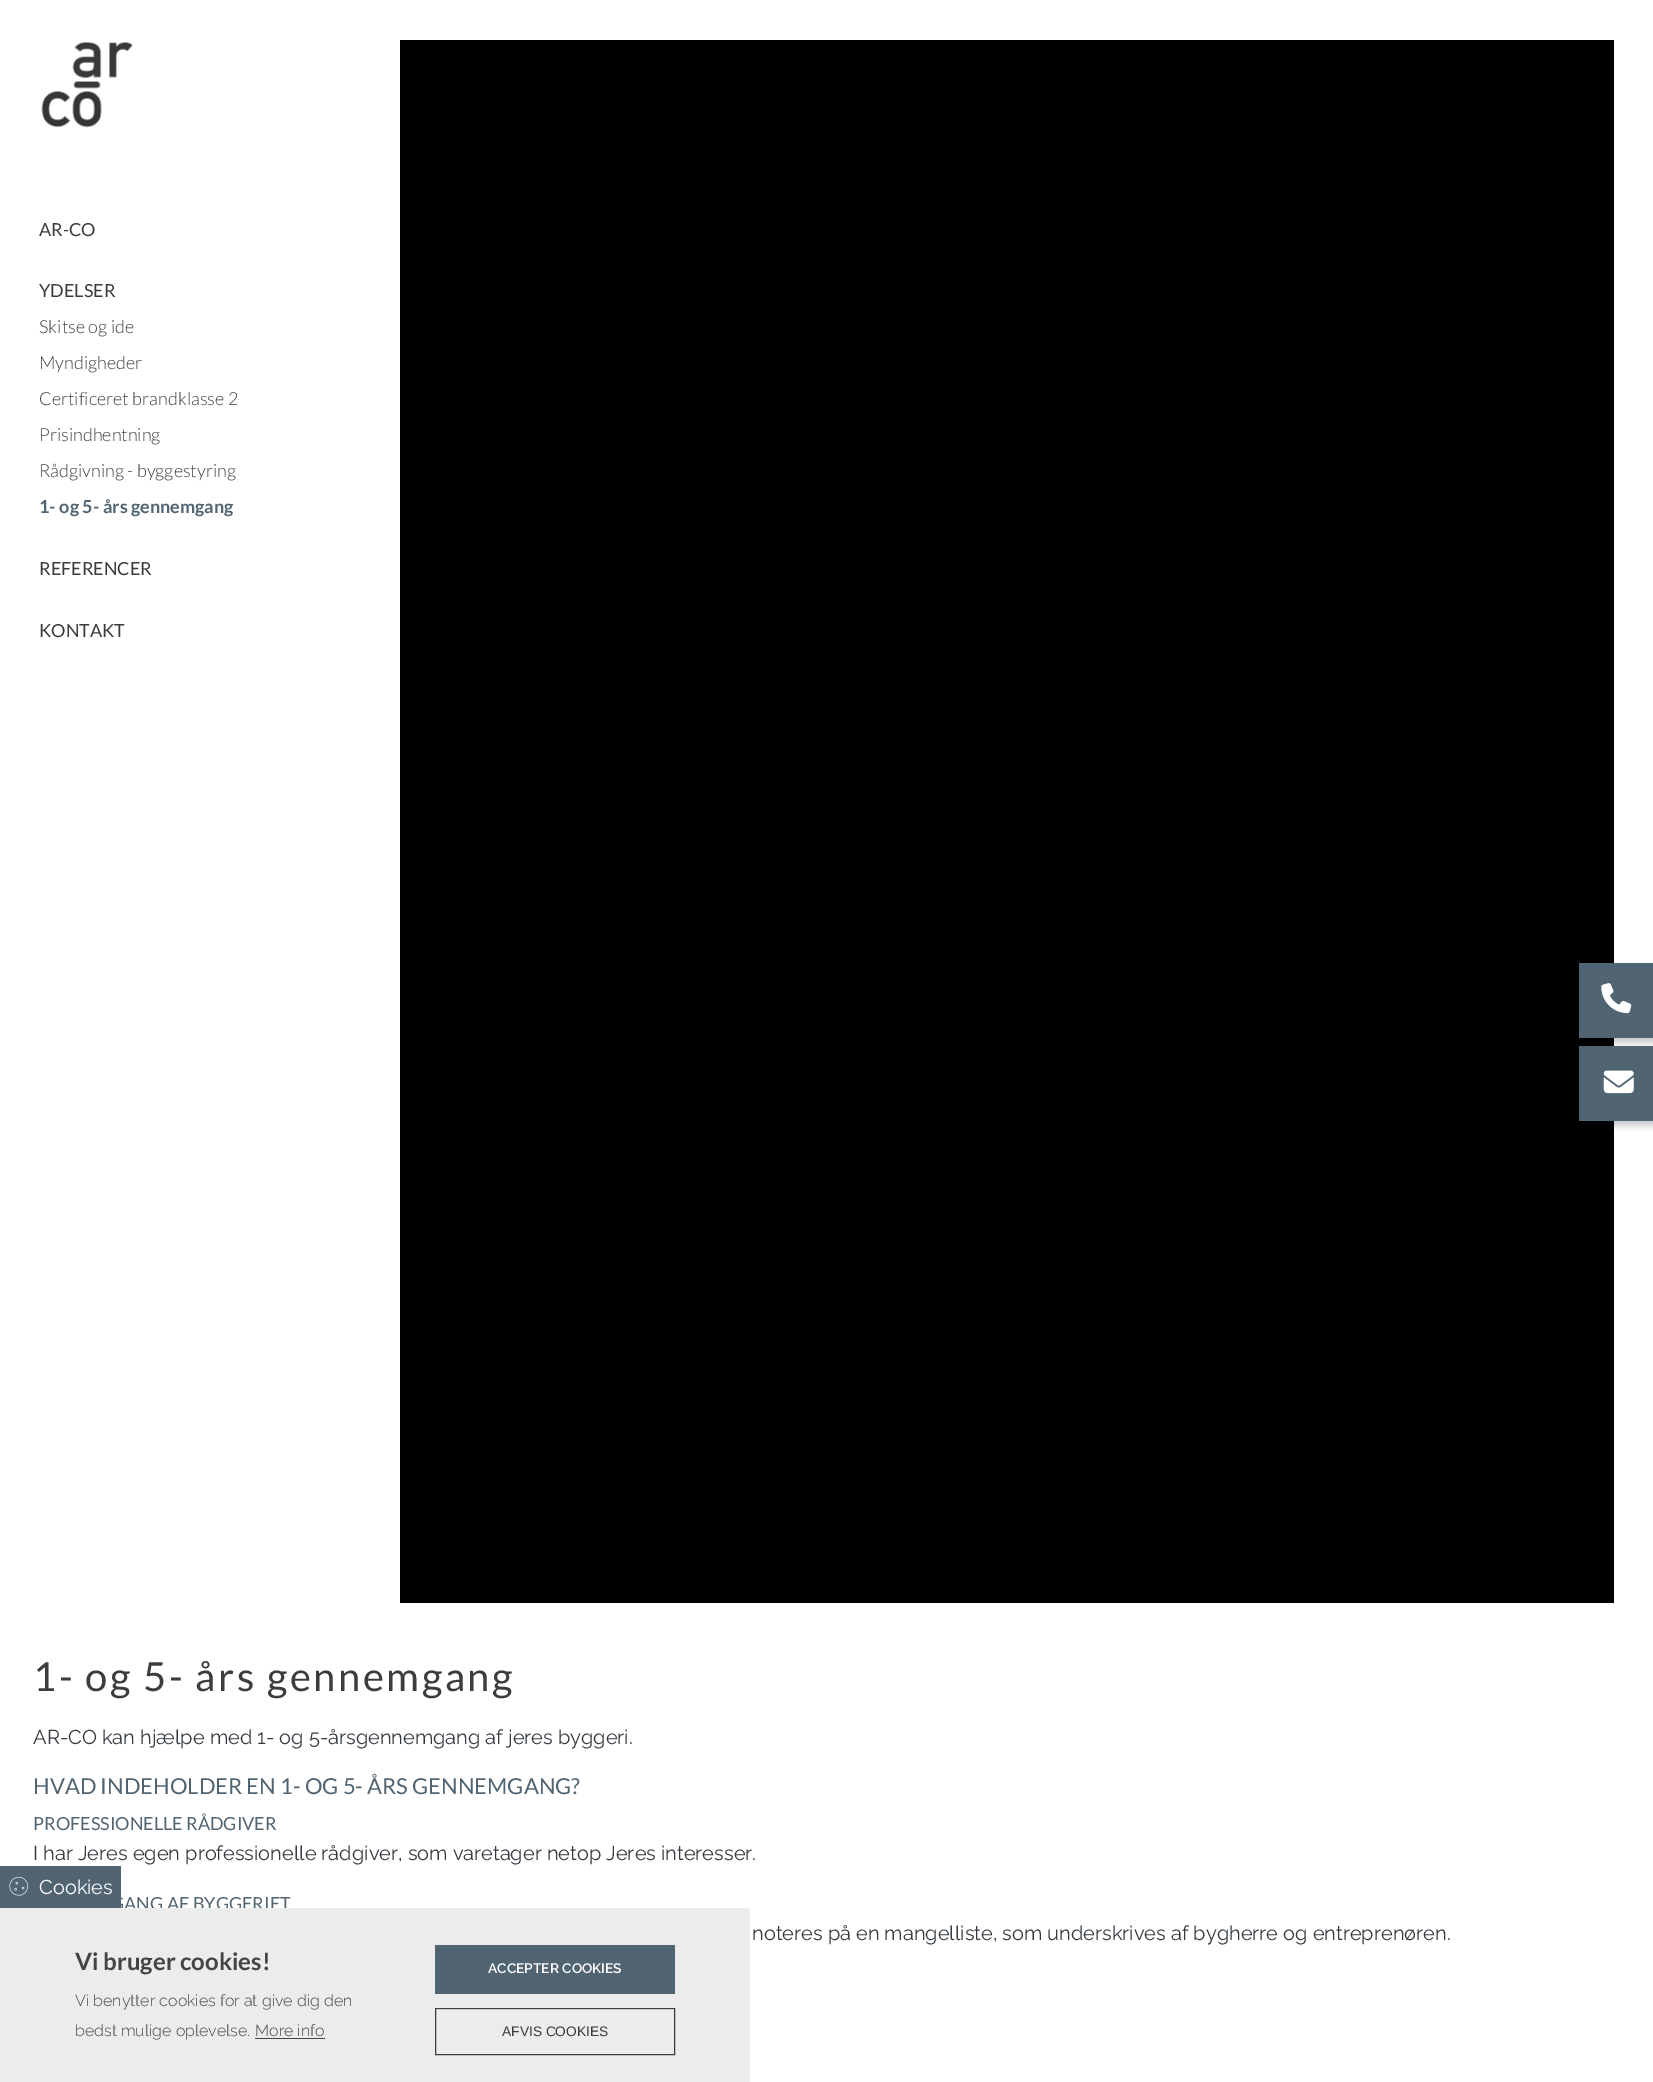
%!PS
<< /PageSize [1653 2082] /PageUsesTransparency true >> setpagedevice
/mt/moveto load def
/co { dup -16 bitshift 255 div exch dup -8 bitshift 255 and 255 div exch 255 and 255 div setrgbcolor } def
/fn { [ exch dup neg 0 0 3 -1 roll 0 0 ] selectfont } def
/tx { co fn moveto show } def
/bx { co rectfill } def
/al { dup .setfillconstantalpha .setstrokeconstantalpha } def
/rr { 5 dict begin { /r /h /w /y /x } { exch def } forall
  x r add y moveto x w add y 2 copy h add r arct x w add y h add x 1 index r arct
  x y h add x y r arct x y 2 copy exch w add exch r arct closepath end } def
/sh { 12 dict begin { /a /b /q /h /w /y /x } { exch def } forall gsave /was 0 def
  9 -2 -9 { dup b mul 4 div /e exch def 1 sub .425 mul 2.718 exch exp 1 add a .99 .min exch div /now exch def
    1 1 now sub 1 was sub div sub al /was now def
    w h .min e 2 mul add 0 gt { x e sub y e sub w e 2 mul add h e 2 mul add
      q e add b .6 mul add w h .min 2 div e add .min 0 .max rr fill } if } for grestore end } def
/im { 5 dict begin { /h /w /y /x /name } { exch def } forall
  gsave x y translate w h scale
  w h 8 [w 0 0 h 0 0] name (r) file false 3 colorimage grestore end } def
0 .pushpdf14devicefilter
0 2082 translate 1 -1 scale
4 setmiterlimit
0 0 1653 2082 16#FFFFFF bx
(media/1.raw) 41 41 92 87 im
400 40 1214 1563 16#000000 bx
1579 968 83 75 0 3 .2 sh
1579 963 74 75 16#516472 bx
(media/2.raw) 1601 983 31 31 im
16#000000 co
1579 1051 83 75 0 3 .2 sh
1579 1046 74 75 16#516472 bx
(media/3.raw) 1603 1070 31 24 im
0 1866 121 42 16#516472 bx
(media/4.raw) 9 1876 20 20 im
(AR-CO) 39 236 /Lato-Regular 18 16#3C3C3C tx
(YDELSER) 39 297 /Lato-Regular 18 16#3C3C3C tx
(Skitse og ide) 39 333 /Lato-Light 18 16#3C3C3C tx
(Myndigheder) 39 369 /Lato-Light 18 16#3C3C3C tx
(Certificeret brandklasse 2) 39 405 /Lato-Light 18 16#3C3C3C tx
(Prisindhentning) 39 441 /Lato-Light 18 16#3C3C3C tx
(Rådgivning - byggestyring) 39 477 /Lato-Light 18 16#3C3C3C tx
(1- og 5- års gennemgang) 39 513 /Lato-Bold 18 16#516472 tx
(REFERENCER) 39 575 /Lato-Regular 18 16#3C3C3C tx
(KONTAKT) 39 637 /Lato-Regular 18 16#3C3C3C tx
/Lato-Regular 40 fn
33 1691 mt 2.5 0 (1- og 5- års gennemgang) ashow
(AR-CO kan hjælpe med 1- og 5-årsgennemgang af jeres byggeri.) 33 1744 /Raleway-Regular 20 16#343A40 tx
(HVAD INDEHOLDER EN 1- OG 5- ÅRS GENNEMGANG?) 33 1794 /Lato-Regular 22 16#516472 tx
(PROFESSIONELLE RÅDGIVER) 33 1830 /Lato-Regular 18 16#516472 tx
(I har Jeres egen professionelle rådgiver, som varetager netop Jeres interesser.) 33 1860 /Raleway-Regular 20 16#343A40 tx
(GANG AF BYGGERIET) 111 1910 /Lato-Regular 18 16#516472 tx
(noteres på en mangelliste, som underskrives af bygherre og entreprenøren.) 752 1940 /Raleway-Regular 20 16#343A40 tx
0 1908 750 174 16#ECECEC bx
(Cookies) 39 1894 /Raleway-Regular 20 16#FFFFFF tx
(Vi bruger cookies!) 75 1970 /Lato-Bold 24 16#444444 tx
(Vi benytter cookies for at give dig den) 75 2006 /Raleway-Light 16 16#444444 tx
(bedst mulige oplevelse.) 75 2036 /Raleway-Light 16 16#444444 tx
(More info) 255 2036 /Raleway-Light 16 16#444444 tx
255 2038 70 1 16#444444 bx
435 1945 240 49 16#516472 bx
(ACCEPTER COOKIES) 488 1973 /Raleway-SemiBold 13.75 16#FFFFFF tx
436 2009 238 1 16#FFFFFF bx
16#3C3C3C co
435.5 2008.5 239 46 rectstroke
(AFVIS COOKIES) 502 2036 /LiberationSans-Regular 13.75 16#343A40 tx
.poppdf14devicefilter showpage
